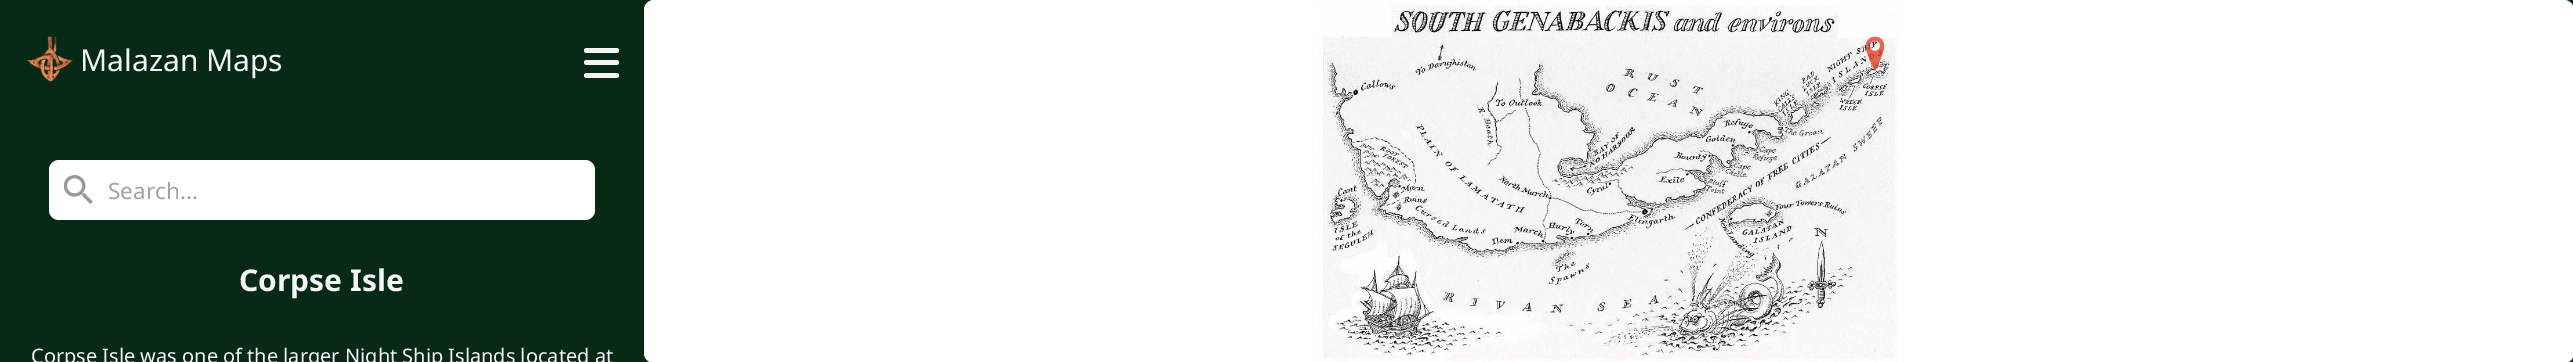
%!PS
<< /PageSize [2573 362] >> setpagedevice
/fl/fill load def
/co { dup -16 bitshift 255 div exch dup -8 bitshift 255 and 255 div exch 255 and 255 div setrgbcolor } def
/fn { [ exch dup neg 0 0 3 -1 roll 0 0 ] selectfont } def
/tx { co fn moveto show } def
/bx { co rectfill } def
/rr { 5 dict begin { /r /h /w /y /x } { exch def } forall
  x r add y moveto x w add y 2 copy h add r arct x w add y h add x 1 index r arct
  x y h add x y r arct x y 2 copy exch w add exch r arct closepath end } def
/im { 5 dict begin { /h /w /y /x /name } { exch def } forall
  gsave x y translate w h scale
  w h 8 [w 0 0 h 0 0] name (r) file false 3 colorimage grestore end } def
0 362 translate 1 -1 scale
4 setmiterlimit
0 0 2573 362 16#082915 bx
(media/1.raw) 27 36 46 46 im
16#F3F4F6 co
584 48 35 5 2.5 rr fl
584 60 35 5 2.5 rr fl
584 73 35 5 2.5 rr fl
16#FFFFFF co
49 160 546 60 10 rr fl
(media/2.raw) 63 175 30 30 im
644 0 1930 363 10 rr fl
(media/3.raw) 1319 0 580 362 im
(media/4.raw) 1865 36 20 36 im
(Malazan Maps) 80 71 /NotoSans-Regular 30 16#F3F4F6 tx
(Search...) 108 199 /NotoSans-Regular 22.5 16#9CA3AF tx
(Corpse Isle) 239 291 /NotoSans-Bold 30 16#F3F4F6 tx
(Corpse Isle was one of the larger Night Ship Islands located at) 31 363 /NotoSans-Regular 20 16#F3F4F6 tx
showpage
